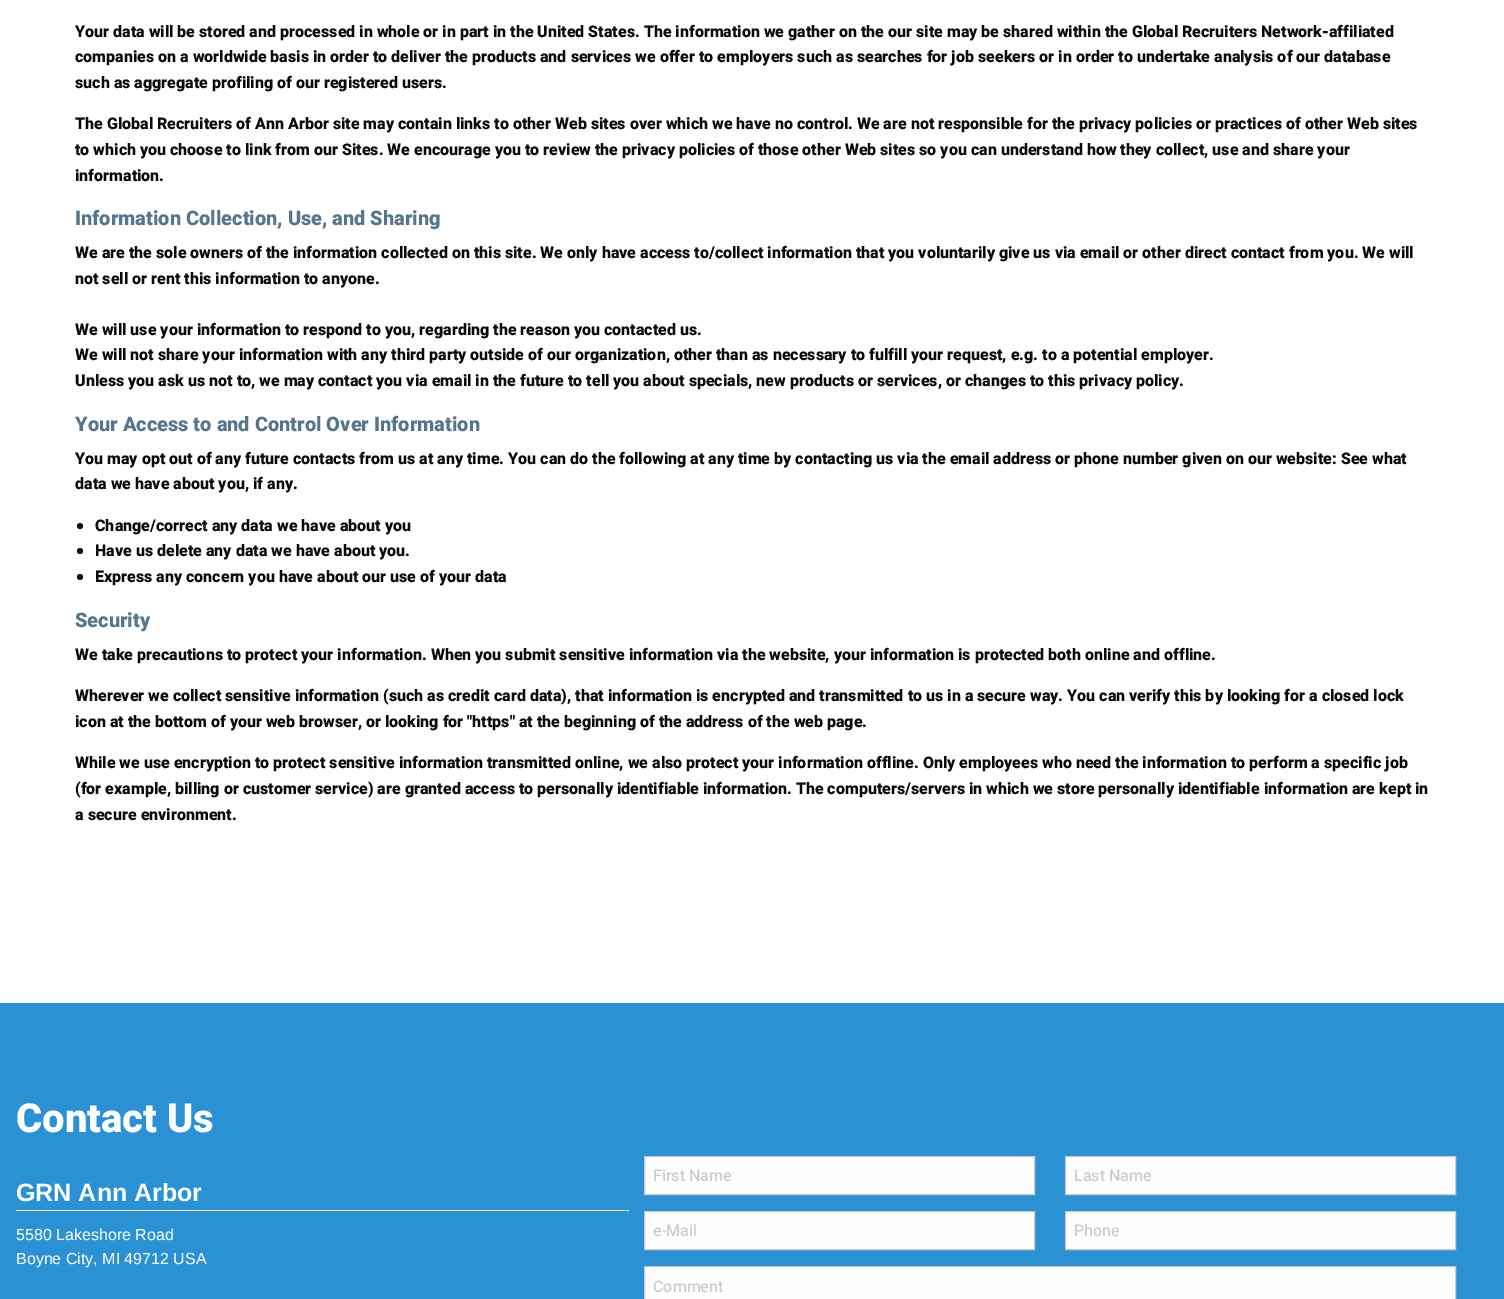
%!PS
<< /PageSize [1504 1299] >> setpagedevice
/mt/moveto load def
/li/lineto load def
/cp/closepath load def
/fl/fill load def
/st/stroke load def
/gs/gsave load def
/gr/grestore load def
/co { dup -16 bitshift 255 div exch dup -8 bitshift 255 and 255 div exch 255 and 255 div setrgbcolor } def
/fn { [ exch dup neg 0 0 3 -1 roll 0 0 ] selectfont } def
/tx { co fn moveto show } def
/bx { co rectfill } def
/ci { newpath 0 360 arc closepath } def
0 1299 translate 1 -1 scale
4 setmiterlimit
0 0 1504 1299 16#FFFFFF bx
16#0A0A0A co
80 526 3 ci fl
80 551 3 ci fl
80 577 3 ci fl
0 1003 1504 296 16#2A92D4 bx
16 1210 613 1 16#FFFFFF bx
16#FEFEFE co
644.5 1156.5 mt 1034.5 1156.5 li 1034.5 1194.5 li 644.5 1194.5 li cp gs fl gr
16#CACACA co
st
16#FEFEFE co
1065.5 1156.5 mt 1455.5 1156.5 li 1455.5 1194.5 li 1065.5 1194.5 li cp gs fl gr
16#CACACA co
st
16#FEFEFE co
644.5 1211.5 mt 1034.5 1211.5 li 1034.5 1249.5 li 644.5 1249.5 li cp gs fl gr
16#CACACA co
st
16#FEFEFE co
1065.5 1211.5 mt 1455.5 1211.5 li 1455.5 1249.5 li 1065.5 1249.5 li cp gs fl gr
16#CACACA co
st
16#FEFEFE co
644.5 1266.5 mt 1455.5 1266.5 li 1455.5 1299.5 li 644.5 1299.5 li cp gs fl gr
16#CACACA co
st
(Your data will be stored and processed in whole or in part in the United States. The information we gather on the our site may be shared within the Global Recruiters Network-affiliated) 75 37 /Heebo-ExtraBold 16 16#0A0A0A tx
(companies on a worldwide basis in order to deliver the products and services we offer to employers such as searches for job seekers or in order to undertake analysis of our database) 75 62 /Heebo-ExtraBold 16 16#0A0A0A tx
(such as aggregate profiling of our registered users.) 75 88 /Heebo-ExtraBold 16 16#0A0A0A tx
(The Global Recruiters of Ann Arbor site may contain links to other Web sites over which we have no control. We are not responsible for the privacy policies or practices of other Web sites) 75 129 /Heebo-ExtraBold 16 16#0A0A0A tx
(to which you choose to link from our Sites. We encourage you to review the privacy policies of those other Web sites so you can understand how they collect, use and share your) 75 155 /Heebo-ExtraBold 16 16#0A0A0A tx
(information.) 75 181 /Heebo-ExtraBold 16 16#0A0A0A tx
(Information Collection, Use, and Sharing) 75 225 /Heebo-ExtraBold 20 16#54768C tx
(We are the sole owners of the information collected on this site. We only have access to/collect information that you voluntarily give us via email or other direct contact from you. We will) 75 258 /Heebo-ExtraBold 16 16#0A0A0A tx
(not sell or rent this information to anyone.) 75 284 /Heebo-ExtraBold 16 16#0A0A0A tx
(We will use your information to respond to you, regarding the reason you contacted us.) 75 335 /Heebo-ExtraBold 16 16#0A0A0A tx
(We will not share your information with any third party outside of our organization, other than as necessary to fulfill your request, e.g. to a potential employer.) 75 360 /Heebo-ExtraBold 16 16#0A0A0A tx
(Unless you ask us not to, we may contact you via email in the future to tell you about specials, new products or services, or changes to this privacy policy.) 75 386 /Heebo-ExtraBold 16 16#0A0A0A tx
(Your Access to and Control Over Information) 75 431 /Heebo-ExtraBold 20 16#54768C tx
(You may opt out of any future contacts from us at any time. You can do the following at any time by contacting us via the email address or phone number given on our website: See what) 75 464 /Heebo-ExtraBold 16 16#0A0A0A tx
(data we have about you, if any.) 75 489 /Heebo-ExtraBold 16 16#0A0A0A tx
(Change/correct any data we have about you) 95 531 /Heebo-ExtraBold 16 16#0A0A0A tx
(Have us delete any data we have about you.) 95 556 /Heebo-ExtraBold 16 16#0A0A0A tx
(Express any concern you have about our use of your data) 95 582 /Heebo-ExtraBold 16 16#0A0A0A tx
(Security) 75 627 /Heebo-ExtraBold 20 16#54768C tx
(We take precautions to protect your information. When you submit sensitive information via the website, your information is protected both online and offline.) 75 660 /Heebo-ExtraBold 16 16#0A0A0A tx
(Wherever we collect sensitive information \(such as credit card data\), that information is encrypted and transmitted to us in a secure way. You can verify this by looking for a closed lock) 75 701 /Heebo-ExtraBold 16 16#0A0A0A tx
(icon at the bottom of your web browser, or looking for "https" at the beginning of the address of the web page.) 75 727 /Heebo-ExtraBold 16 16#0A0A0A tx
(While we use encryption to protect sensitive information transmitted online, we also protect your information offline. Only employees who need the information to perform a specific job) 75 768 /Heebo-ExtraBold 16 16#0A0A0A tx
(\(for example, billing or customer service\) are granted access to personally identifiable information. The computers/servers in which we store personally identifiable information are kept in) 75 794 /Heebo-ExtraBold 16 16#0A0A0A tx
(a secure environment.) 75 820 /Heebo-ExtraBold 16 16#0A0A0A tx
(Contact Us) 16 1132 /Heebo-ExtraBold 40 16#FFFFFF tx
(GRN Ann Arbor) 16 1201 /LiberationSans-Bold 25 16#FFFFFF tx
(5580 Lakeshore Road) 16 1240 /LiberationSans-Regular 16 16#FFFFFF tx
(Boyne City, MI 49712 USA) 16 1264 /LiberationSans-Regular 16 16#FFFFFF tx
(First Name) 653 1181 /Heebo-Medium 16 16#CACACA tx
(Last Name) 1074 1181 /Heebo-Medium 16 16#CACACA tx
(e-Mail) 653 1236 /Heebo-Medium 16 16#CACACA tx
(Phone) 1074 1236 /Heebo-Medium 16 16#CACACA tx
(Comment) 653 1292 /Heebo-Medium 16 16#CACACA tx
showpage
